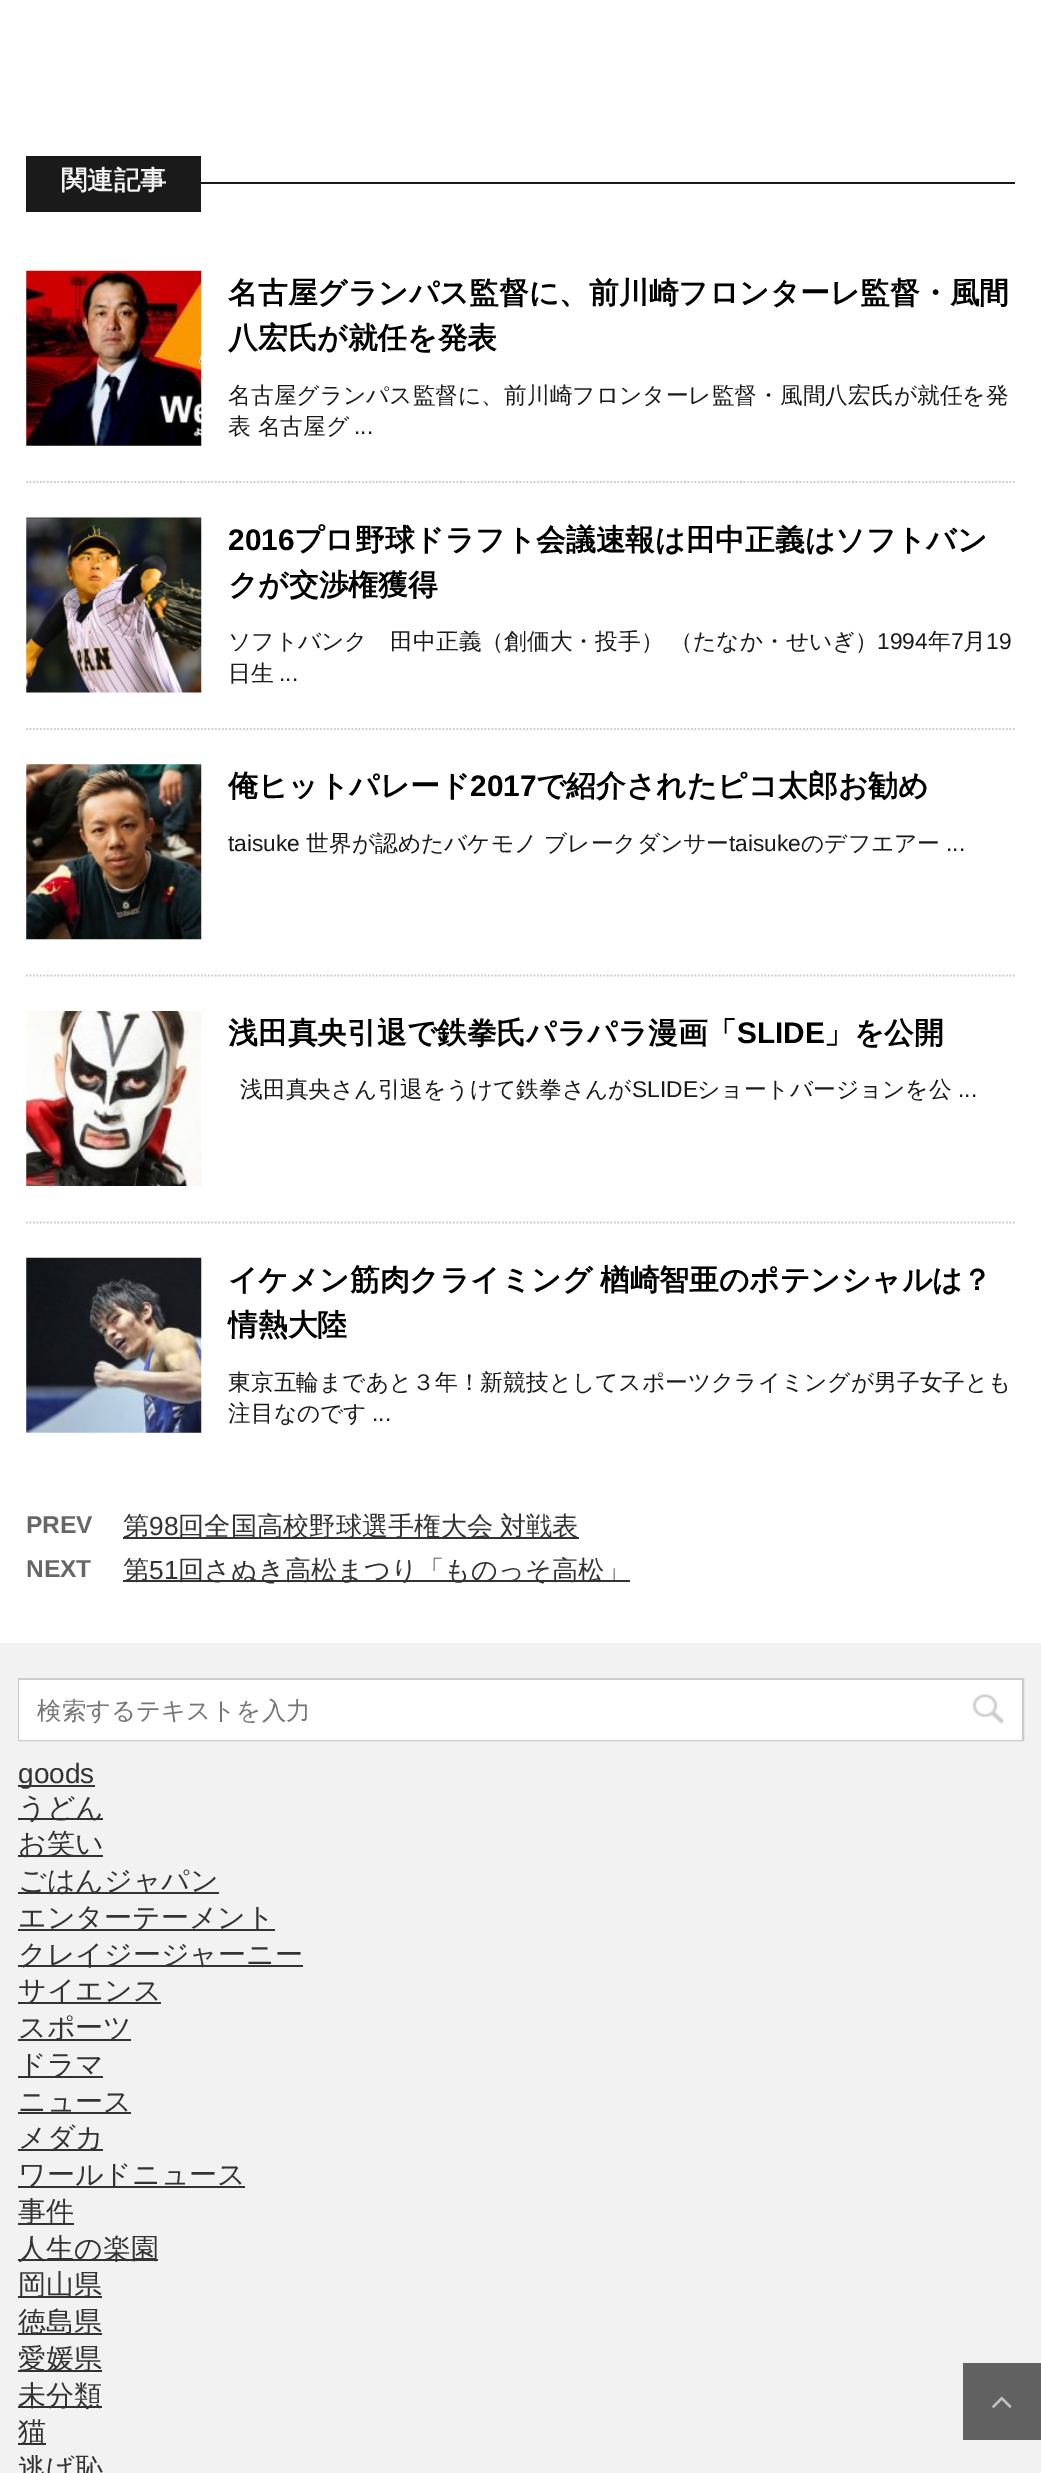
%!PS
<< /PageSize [1041 2473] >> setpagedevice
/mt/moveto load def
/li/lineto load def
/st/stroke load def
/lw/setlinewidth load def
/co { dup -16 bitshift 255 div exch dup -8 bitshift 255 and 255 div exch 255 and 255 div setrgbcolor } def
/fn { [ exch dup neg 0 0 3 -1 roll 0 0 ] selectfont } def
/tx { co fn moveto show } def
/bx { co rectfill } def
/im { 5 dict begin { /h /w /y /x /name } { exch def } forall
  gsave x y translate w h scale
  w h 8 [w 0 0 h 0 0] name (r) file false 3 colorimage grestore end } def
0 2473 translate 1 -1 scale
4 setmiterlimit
0 0 1041 2473 16#F2F2F2 bx
0 0 1041 1643 16#FFFFFF bx
201 182 814 2 16#1A1A1A bx
26 156 175 56 16#1A1A1A bx
16#CCCCCC co
1.8 lw
[1.75 1.75] 0 setdash
26 482 mt 1015 482 li st
(media/1.raw) 26 270 176 176 im
26 729 mt 1015 729 li st
(media/2.raw) 26 517 176 176 im
26 975.5 mt 1015 975.5 li st
(media/3.raw) 26 764 176 176 im
26 1222.5 mt 1015 1222.5 li st
(media/4.raw) 26 1011 175 175 im
(media/5.raw) 26 1257 176 176 im
123 1537 456 2 16#333333 bx
123 1580 507 2 16#333333 bx
16#CCCCCC co
2 lw
[] 0 setdash
19 1679 1004 61 rectstroke
19 1680 1003 60 16#FFFFFF bx
(media/6.raw) 972 1694 32 30 im
18 1785 77 2 16#333333 bx
18 1818 85 2 16#333333 bx
18 1855 85 2 16#333333 bx
18 1892 201 2 16#333333 bx
18 1929 257 2 16#333333 bx
18 1965 285 2 16#333333 bx
18 2002 143 2 16#333333 bx
18 2039 113 2 16#333333 bx
18 2076 85 2 16#333333 bx
18 2112 113 2 16#333333 bx
18 2149 85 2 16#333333 bx
18 2186 227 2 16#333333 bx
18 2223 56 2 16#333333 bx
18 2259 140 2 16#333333 bx
18 2296 84 2 16#333333 bx
18 2333 84 2 16#333333 bx
18 2370 84 2 16#333333 bx
18 2406 84 2 16#333333 bx
18 2443 28 2 16#333333 bx
963 2363 78 77 16#616161 bx
(media/7.raw) 992 2396 20 12 im
(関連記事) 61 189 /WenQuanYiZenHei-Bold 26.25 16#F3F3F3 tx
(名古屋グランパス監督に、前川崎フロンターレ監督・風間) 228 303 /WenQuanYiZenHei-Bold 29.75 16#000000 tx
(八宏氏が就任を発表) 228 348 /WenQuanYiZenHei-Bold 29.75 16#000000 tx
(名古屋グランパス監督に、前川崎フロンターレ監督・風間八宏氏が就任を発) 228 403 /WenQuanYiZenHei-Medium 22.75 16#1A1A1A tx
(表 名古屋グ) 228 434 /WenQuanYiZenHei-Medium 22.75 16#1A1A1A tx
(...) 354 434 /LiberationSans-Regular 22.75 16#1A1A1A tx
(2016) 228 550 /LiberationSans-Bold 29.75 16#000000 tx
(プロ野球ドラフト会議速報は田中正義はソフトバン) 294 550 /WenQuanYiZenHei-Bold 29.75 16#000000 tx
(クが交渉権獲得) 228 595 /WenQuanYiZenHei-Bold 29.75 16#000000 tx
(ソフトバンク　田中正義（創価大・投手） （たなか・せいぎ）) 228 649 /WenQuanYiZenHei-Medium 22.75 16#1A1A1A tx
(1994) 877 649 /LiberationSans-Regular 22.75 16#1A1A1A tx
(年) 928 649 /WenQuanYiZenHei-Medium 22.75 16#1A1A1A tx
(7) 951 649 /LiberationSans-Regular 22.75 16#1A1A1A tx
(月) 963 649 /WenQuanYiZenHei-Medium 22.75 16#1A1A1A tx
(19) 986 649 /LiberationSans-Regular 22.75 16#1A1A1A tx
(日生) 228 681 /WenQuanYiZenHei-Medium 22.75 16#1A1A1A tx
(...) 279 681 /LiberationSans-Regular 22.75 16#1A1A1A tx
(俺ヒットパレード) 228 796 /WenQuanYiZenHei-Bold 29.75 16#000000 tx
(2017) 470 796 /LiberationSans-Bold 29.75 16#000000 tx
(で紹介されたピコ太郎お勧め) 536 796 /WenQuanYiZenHei-Bold 29.75 16#000000 tx
(taisuke) 228 851 /LiberationSans-Regular 22.75 16#1A1A1A tx
(世界が認めたバケモノ ブレークダンサー) 306 851 /WenQuanYiZenHei-Medium 22.75 16#1A1A1A tx
(taisuke) 729 851 /LiberationSans-Regular 22.75 16#1A1A1A tx
(のデフエアー) 801 851 /WenQuanYiZenHei-Medium 22.75 16#1A1A1A tx
(...) 946 851 /LiberationSans-Regular 22.75 16#1A1A1A tx
(浅田真央引退で鉄拳氏パラパラ漫画「) 228 1043 /WenQuanYiZenHei-Bold 29.75 16#000000 tx
(SLIDE) 737 1043 /LiberationSans-Bold 29.75 16#000000 tx
(」を公開) 824 1043 /WenQuanYiZenHei-Bold 29.75 16#000000 tx
(浅田真央さん引退をうけて鉄拳さんが) 240 1097 /WenQuanYiZenHei-Medium 22.75 16#1A1A1A tx
(SLIDE) 632 1097 /LiberationSans-Regular 22.75 16#1A1A1A tx
(ショートバージョンを公) 697 1097 /WenQuanYiZenHei-Medium 22.75 16#1A1A1A tx
(...) 958 1097 /LiberationSans-Regular 22.75 16#1A1A1A tx
/WenQuanYiZenHei-Bold 29.75 fn
16#000000 co
228 1290 mt -1 0 32 (イケメン筋肉クライミング 楢崎智亜のポテンシャルは？) widthshow
(情熱大陸) 228 1335 /WenQuanYiZenHei-Bold 29.75 16#000000 tx
(東京五輪まであと３年！新競技としてスポーツクライミングが男子女子とも) 228 1390 /WenQuanYiZenHei-Medium 22.75 16#1A1A1A tx
(注目なのです) 228 1421 /WenQuanYiZenHei-Medium 22.75 16#1A1A1A tx
(...) 372 1421 /LiberationSans-Regular 22.75 16#1A1A1A tx
(PREV) 26 1533 /LiberationSans-Bold 24.5 16#666666 tx
(第) 123 1535 /WenQuanYiZenHei-Medium 26.25 16#333333 tx
(98) 149 1535 /LiberationSans-Regular 26.25 16#333333 tx
/WenQuanYiZenHei-Medium 26.25 fn
178 1535 mt -1 0 32 (回全国高校野球選手権大会 対戦表) widthshow
(NEXT) 26 1577 /LiberationSans-Bold 24.5 16#666666 tx
(第) 123 1579 /WenQuanYiZenHei-Medium 26.25 16#333333 tx
(51) 149 1579 /LiberationSans-Regular 26.25 16#333333 tx
(回さぬき高松まつり「ものっそ高松」) 178 1579 /WenQuanYiZenHei-Medium 26.25 16#333333 tx
(検索するテキストを入力) 37 1719 /WenQuanYiZenHei-Medium 24.5 16#757575 tx
(goods) 18 1783 /LiberationSans-Regular 28 16#333333 tx
(うどん) 18 1817 /WenQuanYiZenHei-Medium 28 16#333333 tx
(お笑い) 18 1853 /WenQuanYiZenHei-Medium 28 16#333333 tx
(ごはんジャパン) 18 1890 /WenQuanYiZenHei-Medium 28 16#333333 tx
(エンターテーメント) 18 1927 /WenQuanYiZenHei-Medium 28 16#333333 tx
(クレイジージャーニー) 18 1964 /WenQuanYiZenHei-Medium 28 16#333333 tx
(サイエンス) 18 2000 /WenQuanYiZenHei-Medium 28 16#333333 tx
(スポーツ) 18 2037 /WenQuanYiZenHei-Medium 28 16#333333 tx
(ドラマ) 18 2074 /WenQuanYiZenHei-Medium 28 16#333333 tx
(ニュース) 18 2111 /WenQuanYiZenHei-Medium 28 16#333333 tx
(メダカ) 18 2147 /WenQuanYiZenHei-Medium 28 16#333333 tx
(ワールドニュース) 18 2184 /WenQuanYiZenHei-Medium 28 16#333333 tx
(事件) 18 2221 /WenQuanYiZenHei-Medium 28 16#333333 tx
(人生の楽園) 18 2258 /WenQuanYiZenHei-Medium 28 16#333333 tx
(岡山県) 18 2294 /WenQuanYiZenHei-Medium 28 16#333333 tx
(徳島県) 18 2331 /WenQuanYiZenHei-Medium 28 16#333333 tx
(愛媛県) 18 2368 /WenQuanYiZenHei-Medium 28 16#333333 tx
(未分類) 18 2405 /WenQuanYiZenHei-Medium 28 16#333333 tx
(猫) 18 2441 /WenQuanYiZenHei-Medium 28 16#333333 tx
(逃げ恥) 18 2478 /WenQuanYiZenHei-Medium 28 16#333333 tx
showpage
